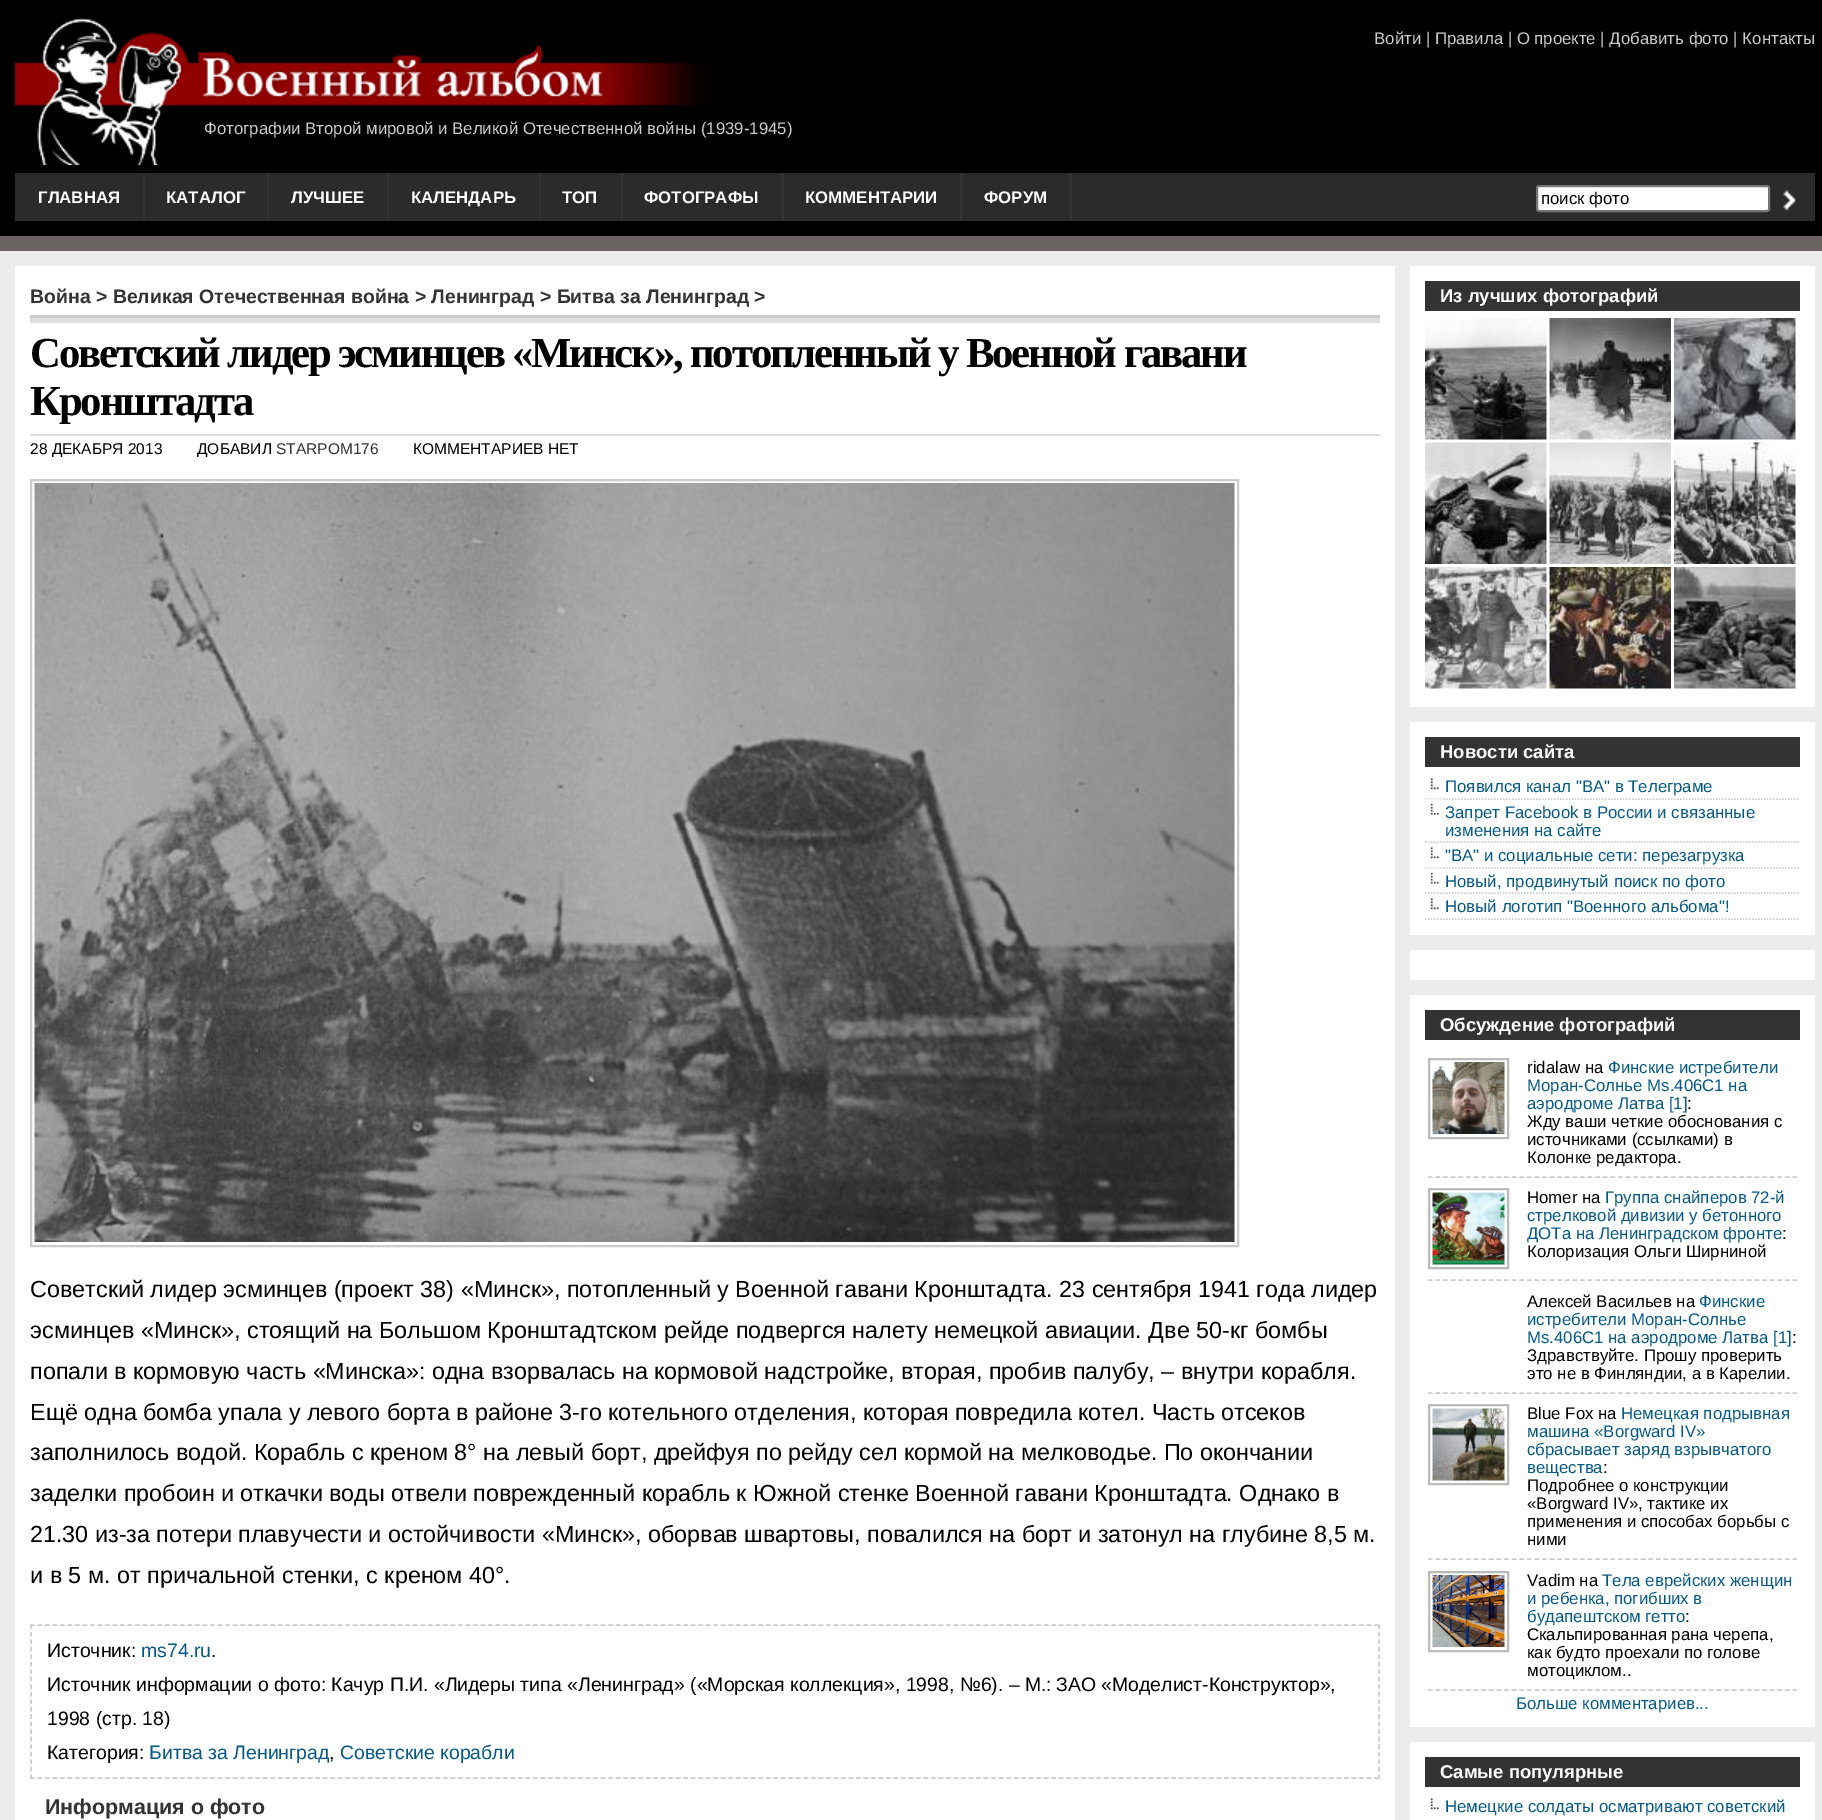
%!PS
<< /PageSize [1822 1820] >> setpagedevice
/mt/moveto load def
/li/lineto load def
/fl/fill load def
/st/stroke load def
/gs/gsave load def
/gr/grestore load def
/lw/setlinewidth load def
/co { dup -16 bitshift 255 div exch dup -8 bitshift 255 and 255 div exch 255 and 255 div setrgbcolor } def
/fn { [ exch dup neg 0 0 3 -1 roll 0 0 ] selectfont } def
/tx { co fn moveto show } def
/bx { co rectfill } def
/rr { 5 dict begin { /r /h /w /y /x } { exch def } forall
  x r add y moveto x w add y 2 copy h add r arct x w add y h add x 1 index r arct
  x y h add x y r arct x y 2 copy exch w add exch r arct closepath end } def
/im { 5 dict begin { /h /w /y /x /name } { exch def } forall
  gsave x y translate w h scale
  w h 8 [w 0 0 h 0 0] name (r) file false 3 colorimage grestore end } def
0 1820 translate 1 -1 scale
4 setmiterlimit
0 0 1822 1820 16#696462 bx
0 0 1822 236 16#000000 bx
(media/1.raw) 15 18 697 147 im
15 173 1800 48 16#2B2B2B bx
143 173 2 48 16#333333 bx
267 173 2 48 16#333333 bx
387 173 2 48 16#333333 bx
539 173 2 48 16#333333 bx
621 173 2 48 16#333333 bx
782 173 2 48 16#333333 bx
960 173 2 48 16#333333 bx
1070 173 2 48 16#333333 bx
16#FFFFFF co
1537 186 232 25 2 rr gs fl gr
16#767676 co
2 lw
st
(media/2.raw) 1783 190 13 21 im
0 251 1822 1569 16#ECECEC bx
15 266 1380 1554 16#FFFFFF bx
30 315 1350 3 16#CCCCCC bx
30 318 1350 5 16#DDDDDD bx
30 434 1350 2 16#DDDDDD bx
16#CCCCCC co
31 480 1207 766 rectstroke
(media/3.raw) 34 483 1201 759 im
1.5 lw
[4.5 3.01] 0 setdash
30 1625 mt 1380 1625 li st
[4.5 3] 0 setdash
1379 1624.5 mt 1379 1779 li st
[4.5 3.01] 0 setdash
30 1778 mt 1380 1778 li st
[4.5 3] 0 setdash
31 1624.5 mt 31 1779 li st
1410 266 405 441 16#FFFFFF bx
1425 281 375 30 16#333333 bx
(media/4.raw) 1425 318 122 122 im
(media/5.raw) 1549 318 122 122 im
(media/6.raw) 1674 318 122 122 im
(media/7.raw) 1425 442 122 122 im
(media/8.raw) 1549 442 122 122 im
(media/9.raw) 1674 442 122 122 im
(media/10.raw) 1425 567 122 122 im
(media/11.raw) 1549 567 122 122 im
(media/12.raw) 1674 567 122 122 im
1410 722 405 213 16#FFFFFF bx
1425 737 375 30 16#333333 bx
(media/13.raw) 1430 778 9 12 im
16#CCCCCC co
[1.5 1.5] 0 setdash
1425 799 mt 1800 799 li st
(media/14.raw) 1425 799 17 16 im
1425 842 mt 1800 842 li st
(media/13.raw) 1430 847 9 12 im
1425 868 mt 1800 868 li st
(media/14.raw) 1425 868 17 16 im
1425 893 mt 1800 893 li st
(media/13.raw) 1430 898 9 12 im
1425 919 mt 1800 919 li st
1410 950 405 30 16#FFFFFF bx
1410 995 405 732 16#FFFFFF bx
1425 1010 375 30 16#333333 bx
16#CCCCCC co
[4.5 3.12] 0 setdash
1428 1177 mt 1524 1177 li st
16#BBBBBB co
2 lw
[] 0 setdash
1429 1059 79 79 rectstroke
(media/15.raw) 1432 1062 73 72 im
16#CCCCCC co
1.5 lw
[4.5 3.09] 0 setdash
1527 1177 mt 1797 1177 li st
[4.5 3.12] 0 setdash
1428 1280 mt 1524 1280 li st
16#BBBBBB co
2 lw
[] 0 setdash
1429 1189 79 79 rectstroke
(media/16.raw) 1432 1192 73 73 im
16#CCCCCC co
1.5 lw
[4.5 3.09] 0 setdash
1527 1280 mt 1797 1280 li st
1527 1393 mt 1797 1393 li st
[4.5 3.12] 0 setdash
1428 1393 mt 1524 1393 li st
1428 1559 mt 1524 1559 li st
16#BBBBBB co
2 lw
[] 0 setdash
1429 1405 79 79 rectstroke
(media/17.raw) 1432 1408 73 73 im
16#CCCCCC co
1.5 lw
[4.5 3.09] 0 setdash
1527 1559 mt 1797 1559 li st
[4.5 3.12] 0 setdash
1428 1690 mt 1524 1690 li st
16#BBBBBB co
2 lw
[] 0 setdash
1429 1572 79 79 rectstroke
(media/18.raw) 1432 1575 73 72 im
16#CCCCCC co
1.5 lw
[4.5 3.09] 0 setdash
1527 1690 mt 1797 1690 li st
1410 1742 405 78 16#FFFFFF bx
1425 1757 375 30 16#333333 bx
(media/13.raw) 1430 1798 9 12 im
(Войти | Правила | О проекте | Добавить фото | Контакты) 1374 44 /LiberationSans-Regular 16.8 16#CCCCCC tx
(Фотографии Второй мировой и Великой Отечественной войны \(1939-1945\)) 204 134 /LiberationSans-Regular 16.8 16#CCCCCC tx
(ГЛАВНАЯ) 38 203 /LiberationSans-Bold 16.8 16#FFFFFF tx
(КАТАЛОГ) 166 203 /LiberationSans-Bold 16.8 16#FFFFFF tx
(ЛУЧШЕЕ) 291 203 /LiberationSans-Bold 16.8 16#FFFFFF tx
(КАЛЕНДАРЬ) 411 203 /LiberationSans-Bold 16.8 16#FFFFFF tx
(ТОП) 562 203 /LiberationSans-Bold 16.8 16#FFFFFF tx
(ФОТОГРАФЫ) 644 203 /LiberationSans-Bold 16.8 16#FFFFFF tx
(КОММЕНТАРИИ) 805 203 /LiberationSans-Bold 16.8 16#FFFFFF tx
(ФОРУМ) 984 203 /LiberationSans-Bold 16.8 16#FFFFFF tx
(поиск фото) 1541 204 /LiberationSans-Regular 16.8 16#000000 tx
(Война > Великая Отечественная война > Ленинград > Битва за Ленинград >) 30 303 /LiberationSans-Bold 19.45 16#333333 tx
/LiberationSerif-Bold 42.75 fn
16#000000 co
30 367 mt -2.15 0 (Советский лидер эсминцев «Минск», потопленный у Военной гавани) ashow
30 415 mt -2.15 0 (Кронштадта) ashow
(28 ДЕКАБРЯ 2013) 30 454 /LiberationSans-Regular 15.5 16#000000 tx
(ДОБАВИЛ) 197 454 /LiberationSans-Regular 15.5 16#000000 tx
(STARPOM176) 276 454 /LiberationSans-Regular 15.5 16#333333 tx
(КОММЕНТАРИЕВ НЕТ) 413 454 /LiberationSans-Regular 15.5 16#000000 tx
(Советский лидер эсминцев \(проект 38\) «Минск», потопленный у Военной гавани Кронштадта. 23 сентября 1941 года лидер) 30 1297 /LiberationSans-Regular 23.33 16#000000 tx
(эсминцев «Минск», стоящий на Большом Кронштадтском рейде подвергся налету немецкой авиации. Две 50-кг бомбы) 30 1338 /LiberationSans-Regular 23.33 16#000000 tx
(попали в кормовую часть «Минска»: одна взорвалась на кормовой надстройке, вторая, пробив палубу, – внутри корабля.) 30 1379 /LiberationSans-Regular 23.33 16#000000 tx
(Ещё одна бомба упала у левого борта в районе 3-го котельного отделения, которая повредила котел. Часть отсеков) 30 1420 /LiberationSans-Regular 23.33 16#000000 tx
(заполнилось водой. Корабль с креном 8° на левый борт, дрейфуя по рейду сел кормой на мелководье. По окончании) 30 1460 /LiberationSans-Regular 23.33 16#000000 tx
(заделки пробоин и откачки воды отвели поврежденный корабль к Южной стенке Военной гавани Кронштадта. Однако в) 30 1501 /LiberationSans-Regular 23.33 16#000000 tx
(21.30 из-за потери плавучести и остойчивости «Минск», оборвав швартовы, повалился на борт и затонул на глубине 8,5 м.) 30 1542 /LiberationSans-Regular 23.33 16#000000 tx
(и в 5 м. от причальной стенки, с креном 40°.) 30 1583 /LiberationSans-Regular 23.33 16#000000 tx
(Источник:) 47 1657 /LiberationSans-Regular 19.45 16#000000 tx
(ms74.ru) 141 1657 /LiberationSans-Regular 19.45 16#055A85 tx
(.) 211 1657 /LiberationSans-Regular 19.45 16#000000 tx
(Источник информации о фото: Качур П.И. «Лидеры типа «Ленинград» \(«Морская коллекция», 1998, №6\). – М.:) 47 1691 /LiberationSans-Regular 19.45 16#000000 tx
(ЗАО «Моделист-Конструктор»,) 1056 1691 /LiberationSans-Regular 19.45 16#000000 tx
(1998 \(стр. 18\)) 47 1725 /LiberationSans-Regular 19.45 16#000000 tx
(Категория:) 47 1759 /LiberationSans-Regular 19.45 16#000000 tx
(Битва за Ленинград) 149 1759 /LiberationSans-Regular 19.45 16#055A85 tx
(,) 329 1759 /LiberationSans-Regular 19.45 16#000000 tx
(Советские корабли) 340 1759 /LiberationSans-Regular 19.45 16#055A85 tx
(Информация о фото) 45 1814 /LiberationSans-Bold 21.4 16#333333 tx
(Из лучших фотографий) 1440 302 /LiberationSans-Bold 18.5 16#FFFFFF tx
(Новости сайта) 1440 758 /LiberationSans-Bold 18.5 16#FFFFFF tx
(Появился канал "ВА" в Телеграме) 1445 792 /LiberationSans-Regular 16.8 16#055A85 tx
(Запрет Facebook в России и связанные) 1445 818 /LiberationSans-Regular 16.8 16#055A85 tx
(изменения на сайте) 1445 836 /LiberationSans-Regular 16.8 16#055A85 tx
("ВА" и социальные сети: перезагрузка) 1445 861 /LiberationSans-Regular 16.8 16#055A85 tx
(Новый, продвинутый поиск по фото) 1445 887 /LiberationSans-Regular 16.8 16#055A85 tx
(Новый логотип "Военного альбома"!) 1445 912 /LiberationSans-Regular 16.8 16#055A85 tx
(Обсуждение фотографий) 1440 1031 /LiberationSans-Bold 18.5 16#FFFFFF tx
(ridalaw на) 1527 1073 /LiberationSans-Regular 16.8 16#000000 tx
(Финские истребители) 1608 1073 /LiberationSans-Regular 16.8 16#055A85 tx
(Моран-Солнье Ms.406С1 на) 1527 1091 /LiberationSans-Regular 16.8 16#055A85 tx
(аэродроме Латва [1]) 1527 1109 /LiberationSans-Regular 16.8 16#055A85 tx
(:) 1687 1109 /LiberationSans-Regular 16.8 16#000000 tx
(Жду ваши четкие обоснования с) 1527 1127 /LiberationSans-Regular 16.8 16#000000 tx
(источниками \(ссылками\) в) 1527 1145 /LiberationSans-Regular 16.8 16#000000 tx
(Колонке редактора.) 1527 1163 /LiberationSans-Regular 16.8 16#000000 tx
(Homer на) 1527 1203 /LiberationSans-Regular 16.8 16#000000 tx
(Группа снайперов 72-й) 1605 1203 /LiberationSans-Regular 16.8 16#055A85 tx
(стрелковой дивизии у бетонного) 1527 1221 /LiberationSans-Regular 16.8 16#055A85 tx
(ДОТа на Ленинградском фронте) 1527 1239 /LiberationSans-Regular 16.8 16#055A85 tx
(:) 1782 1239 /LiberationSans-Regular 16.8 16#000000 tx
(Колоризация Ольги Ширниной) 1527 1257 /LiberationSans-Regular 16.8 16#000000 tx
(Алексей Васильев на) 1527 1307 /LiberationSans-Regular 16.8 16#000000 tx
(Финские) 1699 1307 /LiberationSans-Regular 16.8 16#055A85 tx
(истребители Моран-Солнье) 1527 1325 /LiberationSans-Regular 16.8 16#055A85 tx
(Ms.406С1 на аэродроме Латва [1]) 1527 1343 /LiberationSans-Regular 16.8 16#055A85 tx
(:) 1792 1343 /LiberationSans-Regular 16.8 16#000000 tx
(Здравствуйте. Прошу проверить) 1527 1361 /LiberationSans-Regular 16.8 16#000000 tx
(это не в Финляндии, а в Карелии.) 1527 1379 /LiberationSans-Regular 16.8 16#000000 tx
(Blue Fox на) 1527 1419 /LiberationSans-Regular 16.8 16#000000 tx
(Немецкая подрывная) 1621 1419 /LiberationSans-Regular 16.8 16#055A85 tx
(машина «Borgward IV») 1527 1437 /LiberationSans-Regular 16.8 16#055A85 tx
(сбрасывает заряд взрывчатого) 1527 1455 /LiberationSans-Regular 16.8 16#055A85 tx
(вещества) 1527 1473 /LiberationSans-Regular 16.8 16#055A85 tx
(:) 1603 1473 /LiberationSans-Regular 16.8 16#000000 tx
(Подробнее о конструкции) 1527 1491 /LiberationSans-Regular 16.8 16#000000 tx
(«Borgward IV», тактике их) 1527 1509 /LiberationSans-Regular 16.8 16#000000 tx
(применения и способах борьбы с) 1527 1527 /LiberationSans-Regular 16.8 16#000000 tx
(ними) 1527 1545 /LiberationSans-Regular 16.8 16#000000 tx
(Vadim на) 1527 1586 /LiberationSans-Regular 16.8 16#000000 tx
(Тела еврейских женщин) 1602 1586 /LiberationSans-Regular 16.8 16#055A85 tx
(и ребенка, погибших в) 1527 1604 /LiberationSans-Regular 16.8 16#055A85 tx
(будапештском гетто) 1527 1622 /LiberationSans-Regular 16.8 16#055A85 tx
(:) 1685 1622 /LiberationSans-Regular 16.8 16#000000 tx
(Скальпированная рана черепа,) 1527 1640 /LiberationSans-Regular 16.8 16#000000 tx
(как будто проехали по голове) 1527 1658 /LiberationSans-Regular 16.8 16#000000 tx
(мотоциклом..) 1527 1676 /LiberationSans-Regular 16.8 16#000000 tx
(Больше комментариев...) 1516 1709 /LiberationSans-Regular 16.8 16#055A85 tx
(Самые популярные) 1440 1778 /LiberationSans-Bold 18.5 16#FFFFFF tx
(Немецкие солдаты осматривают советский) 1445 1812 /LiberationSans-Regular 16.8 16#055A85 tx
showpage
